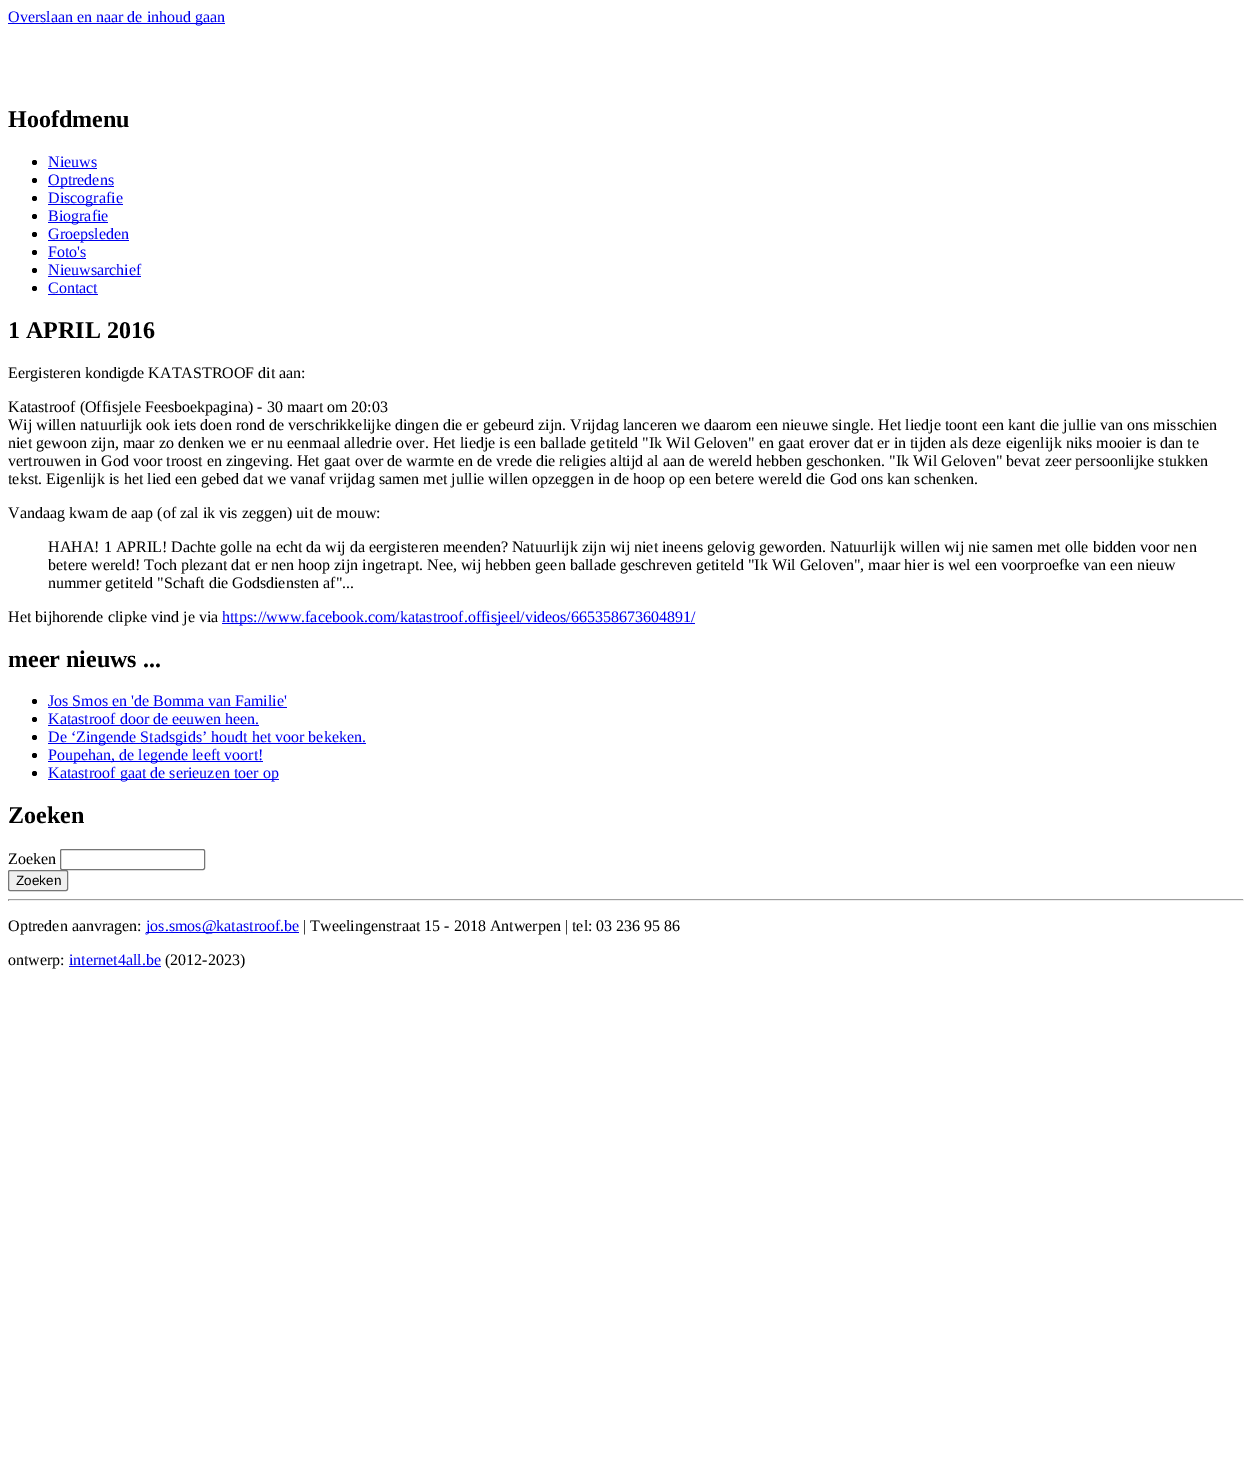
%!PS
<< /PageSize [1252 1472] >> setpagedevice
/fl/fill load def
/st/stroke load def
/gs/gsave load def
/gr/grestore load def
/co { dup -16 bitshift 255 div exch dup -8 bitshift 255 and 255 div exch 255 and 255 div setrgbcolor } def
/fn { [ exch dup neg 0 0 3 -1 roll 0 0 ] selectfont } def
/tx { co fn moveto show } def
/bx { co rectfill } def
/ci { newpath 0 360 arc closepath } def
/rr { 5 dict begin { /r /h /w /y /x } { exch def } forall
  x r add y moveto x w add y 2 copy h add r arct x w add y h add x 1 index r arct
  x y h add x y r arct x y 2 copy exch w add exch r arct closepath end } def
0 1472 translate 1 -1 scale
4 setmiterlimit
0 0 1252 1472 16#FFFFFF bx
8 23 217 1 16#0000EE bx
16#000000 co
34.5 162.5 2.5 ci fl
48 168 49 1 16#0000EE bx
16#000000 co
34.5 180.5 2.5 ci fl
48 186 66 1 16#0000EE bx
16#000000 co
34.5 198.5 2.5 ci fl
48 204 75 1 16#0000EE bx
16#000000 co
34.5 216.5 2.5 ci fl
48 222 60 1 16#0000EE bx
16#000000 co
34.5 234.5 2.5 ci fl
48 240 81 1 16#0000EE bx
16#000000 co
34.5 252.5 2.5 ci fl
48 258 38 1 16#0000EE bx
16#000000 co
34.5 270.5 2.5 ci fl
48 276 93 1 16#0000EE bx
16#000000 co
34.5 288.5 2.5 ci fl
48 294 50 1 16#0000EE bx
222 623 473 1 16#0000EE bx
16#000000 co
34.5 701.5 2.5 ci fl
48 707 239 1 16#0000EE bx
16#000000 co
34.5 719.5 2.5 ci fl
48 725 211 1 16#0000EE bx
16#000000 co
34.5 737.5 2.5 ci fl
48 743 318 1 16#0000EE bx
16#000000 co
34.5 755.5 2.5 ci fl
48 761 215 1 16#0000EE bx
16#000000 co
34.5 773.5 2.5 ci fl
48 779 231 1 16#0000EE bx
16#767676 co
60.5 849.5 144 20 1.5 rr st
16#EFEFEF co
8.5 870.5 59 20 1.5 rr gs fl gr
16#767676 co
st
8 899 1236 1 16#9F9F9F bx
1243 899 1 2 16#EEEEEE bx
8 900 1236 1 16#EEEEEE bx
8 899 1 2 16#9F9F9F bx
146 932 153 1 16#0000EE bx
69 966 92 1 16#0000EE bx
(Overslaan en naar de inhoud gaan) 8 22 /LiberationSerif-Regular 16 16#0000EE tx
(Hoofdmenu) 8 127 /LiberationSerif-Bold 24 16#000000 tx
(Nieuws) 48 167 /LiberationSerif-Regular 16 16#0000EE tx
(Optredens) 48 185 /LiberationSerif-Regular 16 16#0000EE tx
(Discografie) 48 203 /LiberationSerif-Regular 16 16#0000EE tx
(Biografie) 48 221 /LiberationSerif-Regular 16 16#0000EE tx
(Groepsleden) 48 239 /LiberationSerif-Regular 16 16#0000EE tx
(Foto's) 48 257 /LiberationSerif-Regular 16 16#0000EE tx
(Nieuwsarchief) 48 275 /LiberationSerif-Regular 16 16#0000EE tx
(Contact) 48 293 /LiberationSerif-Regular 16 16#0000EE tx
(1 APRIL 2016) 8 338 /LiberationSerif-Bold 24 16#000000 tx
(Eergisteren kondigde KATASTROOF dit aan:) 8 378 /LiberationSerif-Regular 16 16#000000 tx
(Katastroof \(Offisjele Feesboekpagina\) - 30 maart om 20:03) 8 412 /LiberationSerif-Regular 16 16#000000 tx
(Wij willen natuurlijk ook iets doen rond de verschrikkelijke dingen die er gebeurd zijn. Vrijdag lanceren we daarom een nieuwe single. Het liedje toont een kant die jullie van ons misschien) 8 430 /LiberationSerif-Regular 16 16#000000 tx
(niet gewoon zijn, maar zo denken we er nu eenmaal alledrie over. Het liedje is een ballade getiteld "Ik Wil Geloven" en gaat erover dat er in tijden als deze eigenlijk niks mooier is dan te) 8 448 /LiberationSerif-Regular 16 16#000000 tx
(vertrouwen in God voor troost en zingeving. Het gaat over de warmte en de vrede die religies altijd al aan de wereld hebben geschonken. "Ik Wil Geloven" bevat zeer persoonlijke stukken) 8 466 /LiberationSerif-Regular 16 16#000000 tx
(tekst. Eigenlijk is het lied een gebed dat we vanaf vrijdag samen met jullie willen opzeggen in de hoop op een betere wereld die God ons kan schenken.) 8 484 /LiberationSerif-Regular 16 16#000000 tx
(Vandaag kwam de aap \(of zal ik vis zeggen\) uit de mouw:) 8 518 /LiberationSerif-Regular 16 16#000000 tx
(HAHA! 1 APRIL! Dachte golle na echt da wij da eergisteren meenden? Natuurlijk zijn wij niet ineens gelovig geworden. Natuurlijk willen wij nie samen met olle bidden voor nen) 48 552 /LiberationSerif-Regular 16 16#000000 tx
(betere wereld! Toch plezant dat er nen hoop zijn ingetrapt. Nee, wij hebben geen ballade geschreven getiteld "Ik Wil Geloven", maar hier is wel een voorproefke van een nieuw) 48 570 /LiberationSerif-Regular 16 16#000000 tx
(nummer getiteld "Schaft die Godsdiensten af"...) 48 588 /LiberationSerif-Regular 16 16#000000 tx
(Het bijhorende clipke vind je via) 8 622 /LiberationSerif-Regular 16 16#000000 tx
(https://www.facebook.com/katastroof.offisjeel/videos/665358673604891/) 222 622 /LiberationSerif-Regular 16 16#0000EE tx
(meer nieuws ...) 8 667 /LiberationSerif-Bold 24 16#000000 tx
(Jos Smos en 'de Bomma van Familie') 48 706 /LiberationSerif-Regular 16 16#0000EE tx
(Katastroof door de eeuwen heen.) 48 724 /LiberationSerif-Regular 16 16#0000EE tx
(De ‘Zingende Stadsgids’ houdt het voor bekeken.) 48 742 /LiberationSerif-Regular 16 16#0000EE tx
(Poupehan, de legende leeft voort!) 48 760 /LiberationSerif-Regular 16 16#0000EE tx
(Katastroof gaat de serieuzen toer op) 48 778 /LiberationSerif-Regular 16 16#0000EE tx
(Zoeken) 8 823 /LiberationSerif-Bold 24 16#000000 tx
(Zoeken) 8 864 /LiberationSerif-Regular 16 16#000000 tx
(Zoeken) 16 885 /LiberationSans-Regular 13.5 16#000000 tx
(Optreden aanvragen:) 8 931 /LiberationSerif-Regular 16 16#000000 tx
(jos.smos@katastroof.be) 146 931 /LiberationSerif-Regular 16 16#0000EE tx
(| Tweelingenstraat 15 - 2018 Antwerpen | tel: 03 236 95 86) 303 931 /LiberationSerif-Regular 16 16#000000 tx
(ontwerp:) 8 965 /LiberationSerif-Regular 16 16#000000 tx
(internet4all.be) 69 965 /LiberationSerif-Regular 16 16#0000EE tx
(\(2012-2023\)) 165 965 /LiberationSerif-Regular 16 16#000000 tx
showpage
